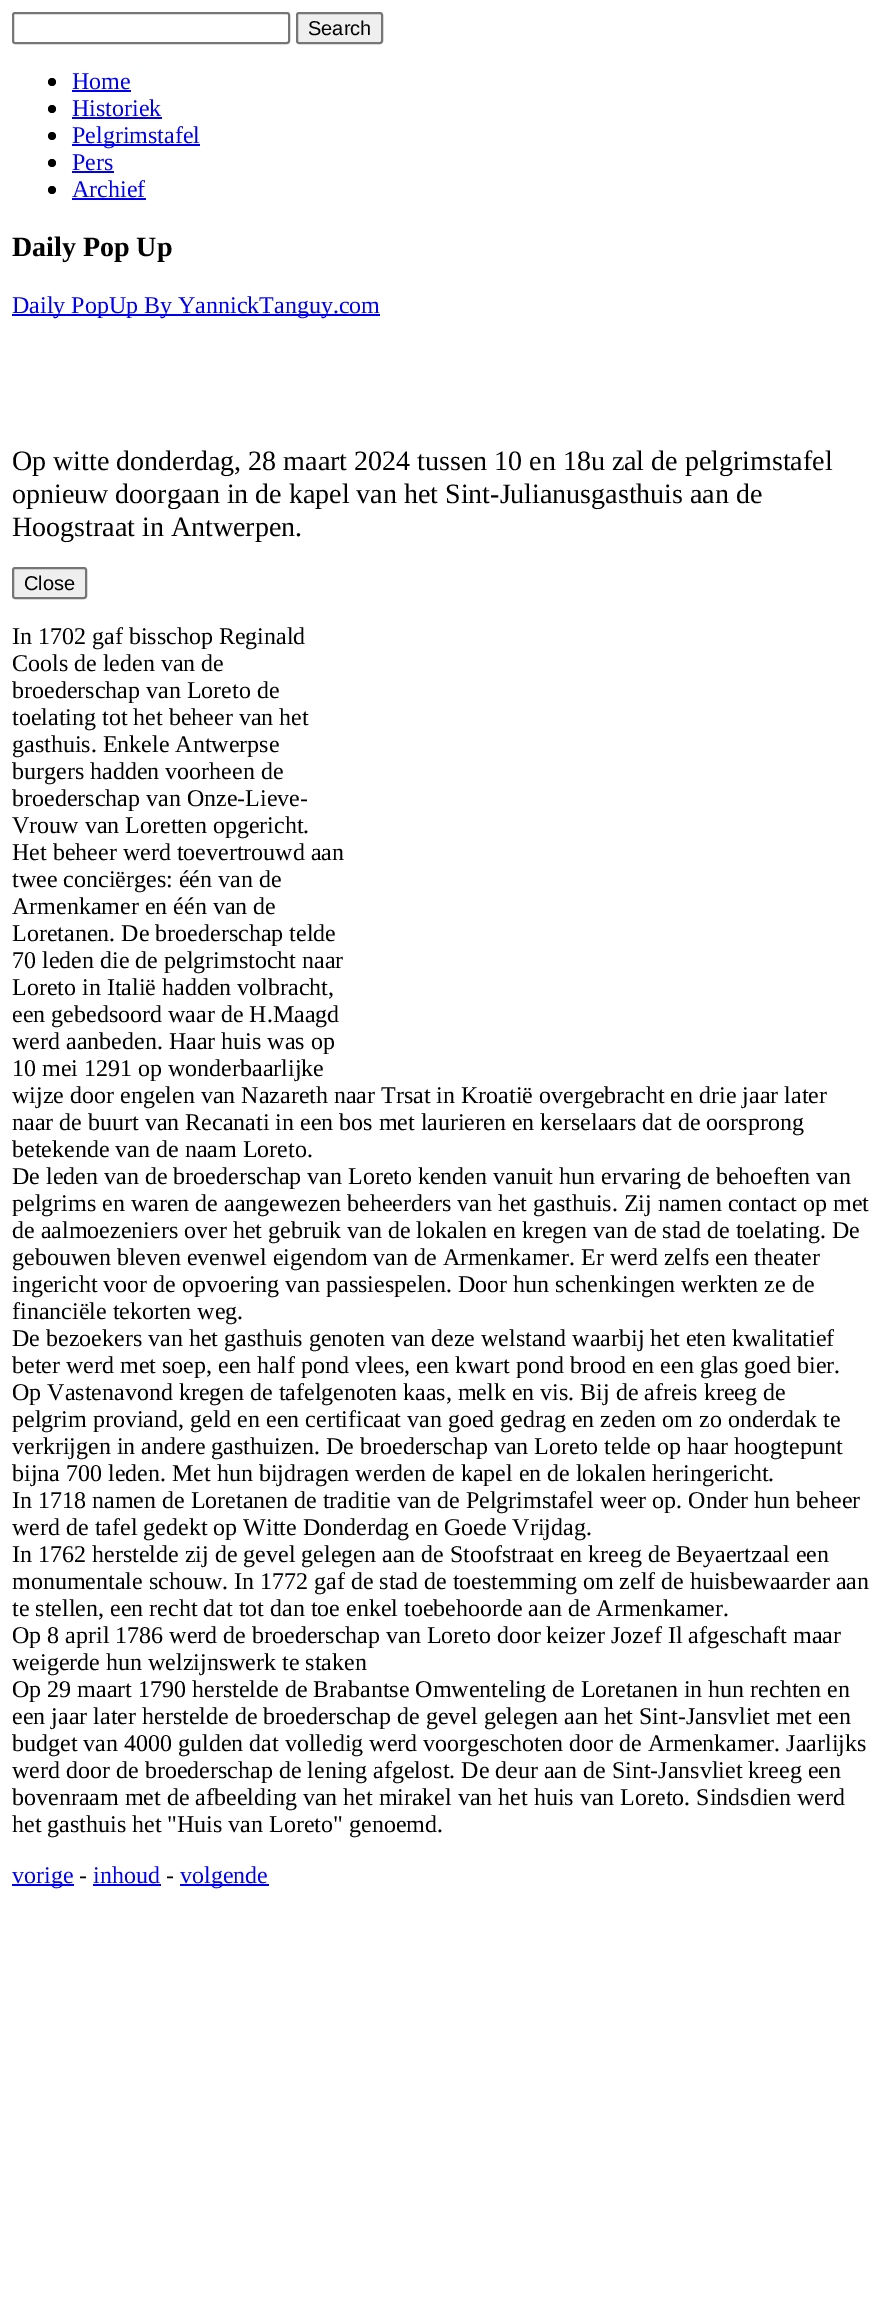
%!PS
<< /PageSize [884 2316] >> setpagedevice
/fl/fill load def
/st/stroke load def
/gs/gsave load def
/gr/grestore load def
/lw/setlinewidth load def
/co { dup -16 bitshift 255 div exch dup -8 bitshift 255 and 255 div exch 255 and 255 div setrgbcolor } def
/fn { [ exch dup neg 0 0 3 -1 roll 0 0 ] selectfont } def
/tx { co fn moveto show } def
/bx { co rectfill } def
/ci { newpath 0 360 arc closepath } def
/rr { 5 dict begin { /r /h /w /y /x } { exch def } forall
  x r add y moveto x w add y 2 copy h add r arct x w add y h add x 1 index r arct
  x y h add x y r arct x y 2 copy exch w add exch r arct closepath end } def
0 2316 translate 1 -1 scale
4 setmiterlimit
0 0 884 2316 16#FFFFFF bx
16#767676 co
2 lw
13 13 276 30 2 rr st
16#EFEFEF co
297 13 85 30 2 rr gs fl gr
16#767676 co
st
16#000000 co
52 82 4 ci fl
72 90 59 2 16#0000EE bx
16#000000 co
52 109 4 ci fl
72 117 90 2 16#0000EE bx
16#000000 co
52 136 4 ci fl
72 144 128 2 16#0000EE bx
16#000000 co
52 163 4 ci fl
72 171 42 2 16#0000EE bx
16#000000 co
52 190 4 ci fl
72 198 74 2 16#0000EE bx
12 314 368 2 16#0000EE bx
16#EFEFEF co
13 568 73 30 2 rr gs fl gr
16#767676 co
st
12 1884 62 2 16#0000EE bx
93 1884 68 2 16#0000EE bx
180 1884 89 2 16#0000EE bx
(Search) 308 35 /LiberationSans-Regular 20 16#000000 tx
(Home) 72 89 /LiberationSerif-Regular 24 16#0000EE tx
(Historiek) 72 116 /LiberationSerif-Regular 24 16#0000EE tx
(Pelgrimstafel) 72 143 /LiberationSerif-Regular 24 16#0000EE tx
(Pers) 72 170 /LiberationSerif-Regular 24 16#0000EE tx
(Archief) 72 197 /LiberationSerif-Regular 24 16#0000EE tx
(Daily Pop Up) 12 256 /LiberationSerif-Bold 28 16#000000 tx
(Daily PopUp By YannickTanguy.com) 12 313 /LiberationSerif-Regular 24 16#0000EE tx
(Op witte donderdag, 28 maart 2024 tussen 10 en 18u zal de pelgrimstafel) 12 470 /LiberationSerif-Regular 28 16#000000 tx
(opnieuw doorgaan in de kapel van het Sint-Julianusgasthuis aan de) 12 503 /LiberationSerif-Regular 28 16#000000 tx
(Hoogstraat in Antwerpen.) 12 536 /LiberationSerif-Regular 28 16#000000 tx
(Close) 24 590 /LiberationSans-Regular 20 16#000000 tx
(In 1702 gaf bisschop Reginald) 12 644 /LiberationSerif-Regular 24 16#000000 tx
(Cools de leden van de) 12 671 /LiberationSerif-Regular 24 16#000000 tx
(broederschap van Loreto de) 12 698 /LiberationSerif-Regular 24 16#000000 tx
(toelating tot het beheer van het) 12 725 /LiberationSerif-Regular 24 16#000000 tx
(gasthuis. Enkele Antwerpse) 12 752 /LiberationSerif-Regular 24 16#000000 tx
(burgers hadden voorheen de) 12 779 /LiberationSerif-Regular 24 16#000000 tx
(broederschap van Onze-Lieve-) 12 806 /LiberationSerif-Regular 24 16#000000 tx
(Vrouw van Loretten opgericht.) 12 833 /LiberationSerif-Regular 24 16#000000 tx
(Het beheer werd toevertrouwd aan) 12 860 /LiberationSerif-Regular 24 16#000000 tx
(twee conciërges: één van de) 12 887 /LiberationSerif-Regular 24 16#000000 tx
(Armenkamer en één van de) 12 914 /LiberationSerif-Regular 24 16#000000 tx
(Loretanen. De broederschap telde) 12 941 /LiberationSerif-Regular 24 16#000000 tx
(70 leden die de pelgrimstocht naar) 12 968 /LiberationSerif-Regular 24 16#000000 tx
(Loreto in Italië hadden volbracht,) 12 995 /LiberationSerif-Regular 24 16#000000 tx
(een gebedsoord waar de H.Maagd) 12 1022 /LiberationSerif-Regular 24 16#000000 tx
(werd aanbeden. Haar huis was op) 12 1049 /LiberationSerif-Regular 24 16#000000 tx
(10 mei 1291 op wonderbaarlijke) 12 1076 /LiberationSerif-Regular 24 16#000000 tx
(wijze door engelen van Nazareth naar Trsat in Kroatië overgebracht en drie jaar later) 12 1103 /LiberationSerif-Regular 24 16#000000 tx
(naar de buurt van Recanati in een bos met laurieren en kerselaars dat de oorsprong) 12 1130 /LiberationSerif-Regular 24 16#000000 tx
(betekende van de naam Loreto.) 12 1157 /LiberationSerif-Regular 24 16#000000 tx
(De leden van de broederschap van Loreto kenden vanuit hun ervaring de behoeften van) 12 1184 /LiberationSerif-Regular 24 16#000000 tx
(pelgrims en waren de aangewezen beheerders van het gasthuis. Zij namen contact op met) 12 1211 /LiberationSerif-Regular 24 16#000000 tx
(de aalmoezeniers over het gebruik van de lokalen en kregen van de stad de toelating. De) 12 1238 /LiberationSerif-Regular 24 16#000000 tx
(gebouwen bleven evenwel eigendom van de Armenkamer. Er werd zelfs een theater) 12 1265 /LiberationSerif-Regular 24 16#000000 tx
(ingericht voor de opvoering van passiespelen. Door hun schenkingen werkten ze de) 12 1292 /LiberationSerif-Regular 24 16#000000 tx
(financiële tekorten weg.) 12 1319 /LiberationSerif-Regular 24 16#000000 tx
(De bezoekers van het gasthuis genoten van deze welstand waarbij het eten kwalitatief) 12 1346 /LiberationSerif-Regular 24 16#000000 tx
(beter werd met soep, een half pond vlees, een kwart pond brood en een glas goed bier.) 12 1373 /LiberationSerif-Regular 24 16#000000 tx
(Op Vastenavond kregen de tafelgenoten kaas, melk en vis. Bij de afreis kreeg de) 12 1400 /LiberationSerif-Regular 24 16#000000 tx
(pelgrim proviand, geld en een certificaat van goed gedrag en zeden om zo onderdak te) 12 1427 /LiberationSerif-Regular 24 16#000000 tx
(verkrijgen in andere gasthuizen. De broederschap van Loreto telde op haar hoogtepunt) 12 1454 /LiberationSerif-Regular 24 16#000000 tx
(bijna 700 leden. Met hun bijdragen werden de kapel en de lokalen heringericht.) 12 1481 /LiberationSerif-Regular 24 16#000000 tx
(In 1718 namen de Loretanen de traditie van de Pelgrimstafel weer op. Onder hun beheer) 12 1508 /LiberationSerif-Regular 24 16#000000 tx
(werd de tafel gedekt op Witte Donderdag en Goede Vrijdag.) 12 1535 /LiberationSerif-Regular 24 16#000000 tx
(In 1762 herstelde zij de gevel gelegen aan de Stoofstraat en kreeg de Beyaertzaal een) 12 1562 /LiberationSerif-Regular 24 16#000000 tx
(monumentale schouw. In 1772 gaf de stad de toestemming om zelf de huisbewaarder aan) 12 1589 /LiberationSerif-Regular 24 16#000000 tx
(te stellen, een recht dat tot dan toe enkel toebehoorde aan de Armenkamer.) 12 1616 /LiberationSerif-Regular 24 16#000000 tx
(Op 8 april 1786 werd de broederschap van Loreto door keizer Jozef Il afgeschaft maar) 12 1643 /LiberationSerif-Regular 24 16#000000 tx
(weigerde hun welzijnswerk te staken) 12 1670 /LiberationSerif-Regular 24 16#000000 tx
(Op 29 maart 1790 herstelde de Brabantse Omwenteling de Loretanen in hun rechten en) 12 1697 /LiberationSerif-Regular 24 16#000000 tx
(een jaar later herstelde de broederschap de gevel gelegen aan het Sint-Jansvliet met een) 12 1724 /LiberationSerif-Regular 24 16#000000 tx
(budget van 4000 gulden dat volledig werd voorgeschoten door de Armenkamer. Jaarlijks) 12 1751 /LiberationSerif-Regular 24 16#000000 tx
(werd door de broederschap de lening afgelost. De deur aan de Sint-Jansvliet kreeg een) 12 1778 /LiberationSerif-Regular 24 16#000000 tx
(bovenraam met de afbeelding van het mirakel van het huis van Loreto. Sindsdien werd) 12 1805 /LiberationSerif-Regular 24 16#000000 tx
(het gasthuis het "Huis van Loreto" genoemd.) 12 1832 /LiberationSerif-Regular 24 16#000000 tx
(vorige) 12 1883 /LiberationSerif-Regular 24 16#0000EE tx
(-) 79 1883 /LiberationSerif-Regular 24 16#000000 tx
(inhoud) 93 1883 /LiberationSerif-Regular 24 16#0000EE tx
(-) 166 1883 /LiberationSerif-Regular 24 16#000000 tx
(volgende) 180 1883 /LiberationSerif-Regular 24 16#0000EE tx
showpage
